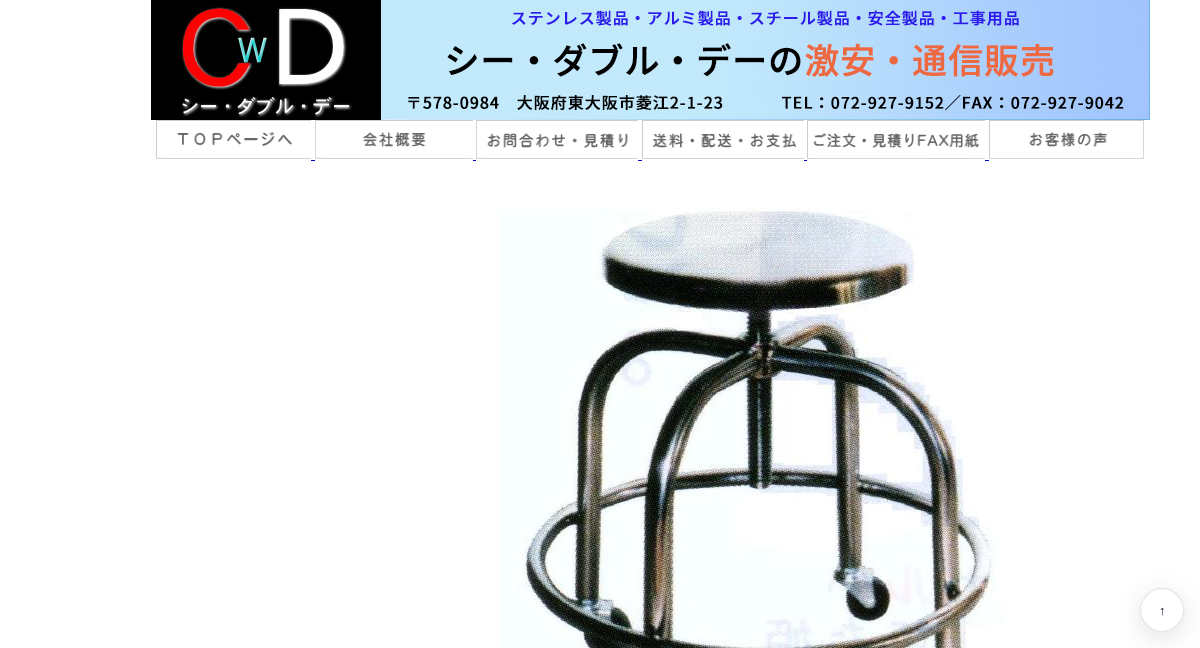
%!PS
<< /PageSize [1200 648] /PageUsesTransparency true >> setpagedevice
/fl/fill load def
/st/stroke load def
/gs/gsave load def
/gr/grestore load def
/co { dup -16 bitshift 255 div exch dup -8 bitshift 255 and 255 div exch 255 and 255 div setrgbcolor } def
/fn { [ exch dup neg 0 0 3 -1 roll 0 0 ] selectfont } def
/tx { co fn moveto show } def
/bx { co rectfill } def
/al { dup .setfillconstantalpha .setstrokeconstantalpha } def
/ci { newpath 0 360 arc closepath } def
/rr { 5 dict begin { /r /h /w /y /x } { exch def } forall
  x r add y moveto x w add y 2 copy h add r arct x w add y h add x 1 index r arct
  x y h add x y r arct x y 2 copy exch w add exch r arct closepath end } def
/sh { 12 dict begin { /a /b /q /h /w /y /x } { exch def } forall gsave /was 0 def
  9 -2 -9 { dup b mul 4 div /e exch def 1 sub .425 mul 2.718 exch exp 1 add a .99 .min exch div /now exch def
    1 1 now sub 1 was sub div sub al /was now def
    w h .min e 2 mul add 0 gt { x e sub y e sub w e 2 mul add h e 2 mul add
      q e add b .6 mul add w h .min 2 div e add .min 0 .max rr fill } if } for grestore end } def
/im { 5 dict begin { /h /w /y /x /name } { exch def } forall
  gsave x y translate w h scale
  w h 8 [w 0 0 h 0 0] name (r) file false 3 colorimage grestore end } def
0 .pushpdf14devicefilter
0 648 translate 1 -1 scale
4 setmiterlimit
0 0 1200 648 16#FFFFFF bx
(media/1.raw) 151 0 999 120 im
(media/2.raw) 156 120 155 39 im
(media/3.raw) 315 120 158 39 im
(media/4.raw) 476 120 162 39 im
(media/5.raw) 642 120 162 39 im
(media/6.raw) 807 120 178 39 im
(media/7.raw) 989 120 155 39 im
311 160 4 1 16#0000CC bx
473 160 3 1 16#0000CC bx
638 160 4 1 16#0000CC bx
804 160 3 1 16#0000CC bx
985 160 4 1 16#0000CC bx
(media/8.raw) 500 208 504 440 im
16#000000 co
1140 594 44 44 22 10 .08 sh
16#FFFFFF co
1162 610 21.5 ci gs fl gr
16#E5E7EB co
st
(↑) 1159 615 /LiberationSans-Regular 13 16#0F172A tx
.poppdf14devicefilter showpage
